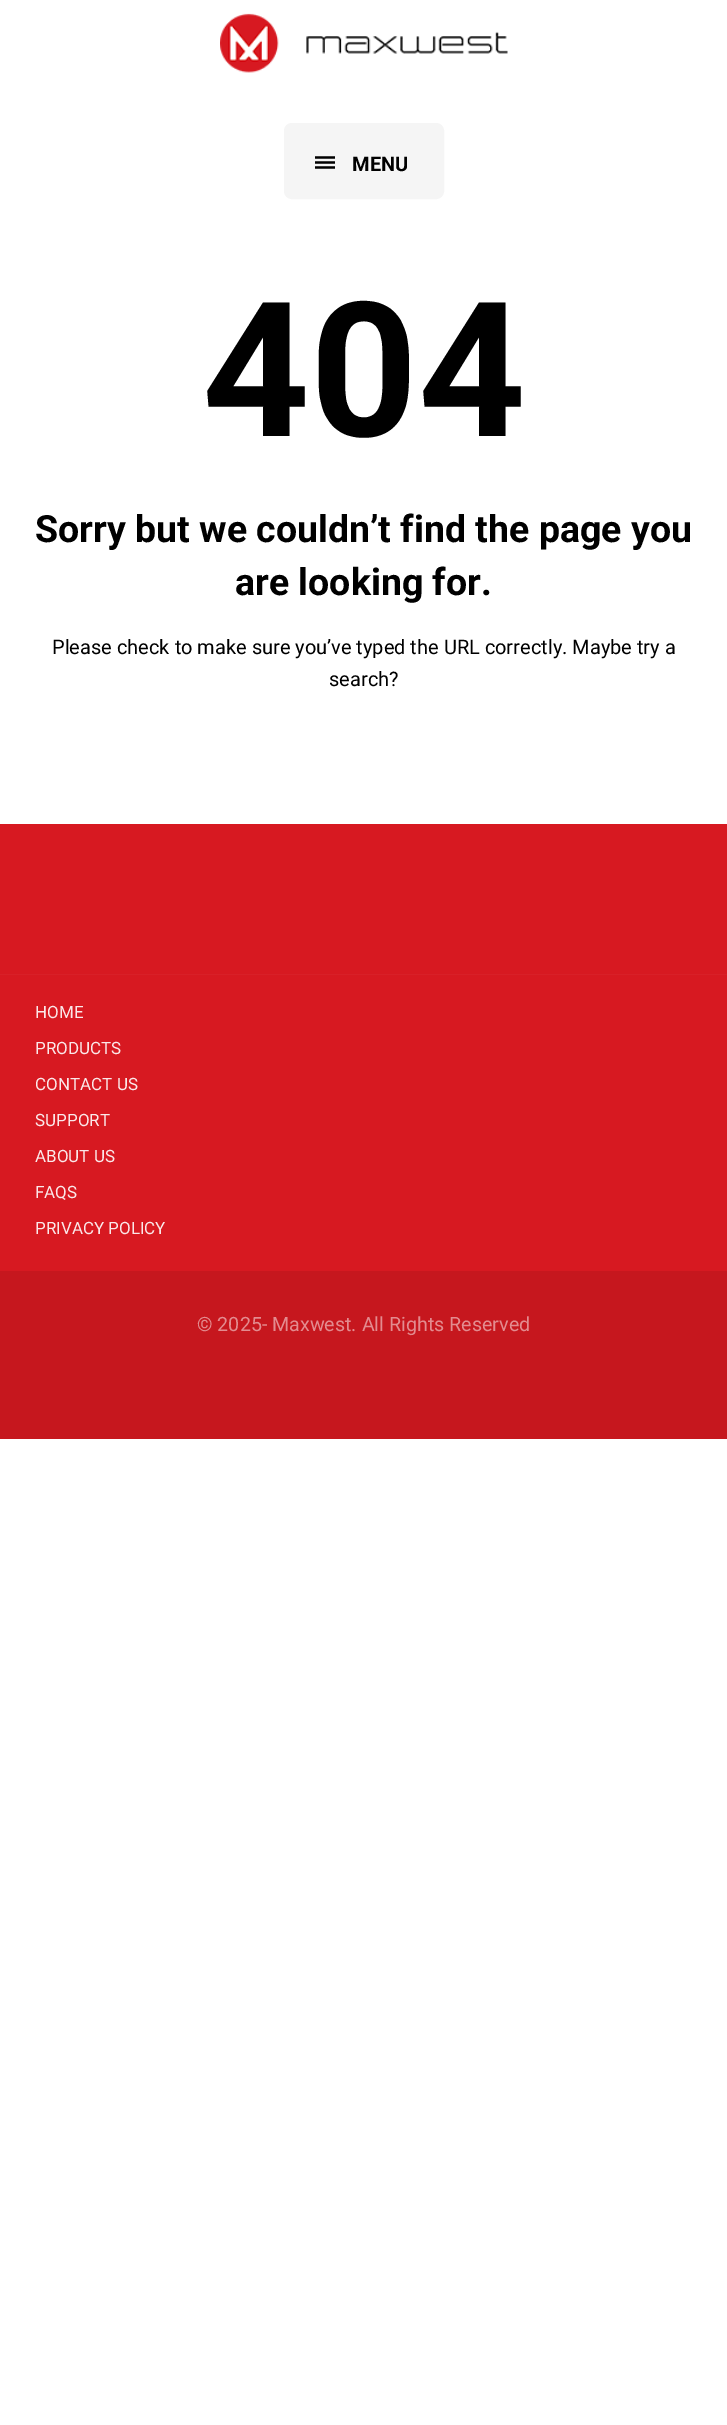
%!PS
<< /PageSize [727 2425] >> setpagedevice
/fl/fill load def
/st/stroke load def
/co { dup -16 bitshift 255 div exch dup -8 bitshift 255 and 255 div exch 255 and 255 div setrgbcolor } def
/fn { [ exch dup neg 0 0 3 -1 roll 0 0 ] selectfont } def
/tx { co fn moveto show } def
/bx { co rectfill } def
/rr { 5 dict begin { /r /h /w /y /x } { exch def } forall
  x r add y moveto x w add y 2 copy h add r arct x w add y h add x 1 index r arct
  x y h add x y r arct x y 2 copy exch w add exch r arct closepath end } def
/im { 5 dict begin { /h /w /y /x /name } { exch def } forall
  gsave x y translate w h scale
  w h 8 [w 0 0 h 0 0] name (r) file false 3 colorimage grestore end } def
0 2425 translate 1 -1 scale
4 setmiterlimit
0 0 727 2425 16#FFFFFF bx
(media/1.raw) 220 13 288 60 im
16#F5F5F5 co
285 124 158 74 6 rr fl
284.5 123.5 159 75 7.5 rr st
(media/2.raw) 315 156 20 13 im
0 824 727 447 16#D71921 bx
0 974 727 1 16#D82028 bx
0 1271 727 168 16#C6171E bx
(MENU) 352 171 /Roboto-Bold 20 16#000000 tx
(404) 202 436 /Roboto-Bold 188 16#000000 tx
(Sorry but we couldn’t find the page you) 35 542 /Roboto-Bold 37.5 16#000000 tx
(are looking for.) 235 595 /Roboto-Bold 37.5 16#000000 tx
(Please check to make sure you’ve typed the URL correctly. Maybe try a) 52 654 /Roboto-Regular 20 16#000000 tx
(search?) 329 686 /Roboto-Regular 20 16#000000 tx
(HOME) 35 1018 /Roboto-Regular 17 16#FBE8E9 tx
(PRODUCTS) 35 1054 /Roboto-Regular 17 16#FBE8E9 tx
(CONTACT US) 35 1090 /Roboto-Regular 17 16#FBE8E9 tx
(SUPPORT) 35 1126 /Roboto-Regular 17 16#FBE8E9 tx
(ABOUT US) 35 1162 /Roboto-Regular 17 16#FBE8E9 tx
(FAQS) 35 1198 /Roboto-Regular 17 16#FBE8E9 tx
(PRIVACY POLICY) 35 1234 /Roboto-Regular 17 16#FBE8E9 tx
(© 2025- Maxwest. All Rights Reserved) 197 1331 /Roboto-Regular 19.7 16#E38B8F tx
showpage
